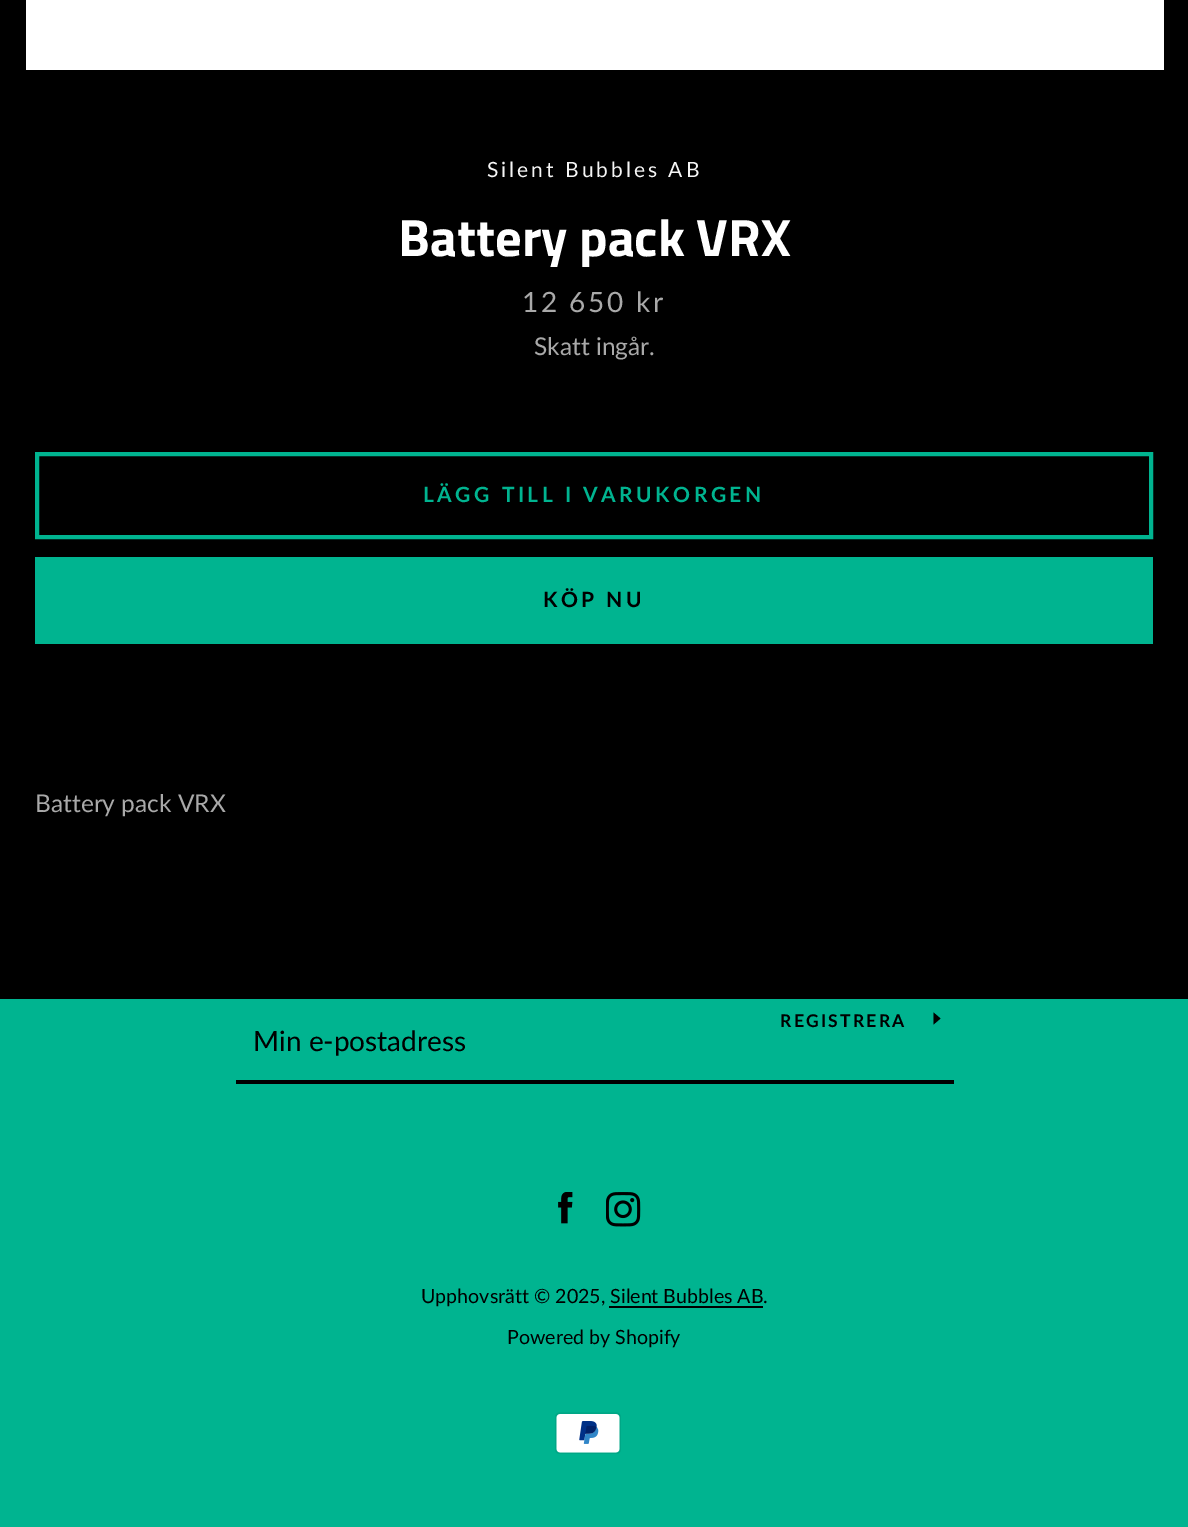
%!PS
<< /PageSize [1188 1527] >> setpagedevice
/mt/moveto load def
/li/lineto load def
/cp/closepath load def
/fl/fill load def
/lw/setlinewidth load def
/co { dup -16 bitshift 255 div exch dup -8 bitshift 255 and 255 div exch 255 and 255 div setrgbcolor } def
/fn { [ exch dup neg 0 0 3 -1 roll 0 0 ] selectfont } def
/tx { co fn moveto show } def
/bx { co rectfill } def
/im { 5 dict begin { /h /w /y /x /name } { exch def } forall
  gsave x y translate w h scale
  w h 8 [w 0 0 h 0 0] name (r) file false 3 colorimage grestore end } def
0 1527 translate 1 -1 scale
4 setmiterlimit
0 0 1188 1527 16#00B490 bx
0 0 1188 999 16#000000 bx
26 0 1138 70 16#FFFFFF bx
16#00B490 co
4 lw
37 454 1114 83 rectstroke
35 557 1118 87 16#00B490 bx
236 1080 718 4 16#000000 bx
940.5 1018.5 mt 933.5 1024.5 li 933.5 1012.5 li cp fl
(media/1.raw) 558 1192 15 32 im
(media/2.raw) 606 1192 35 35 im
609 1306 154 2 16#000000 bx
(media/3.raw) 555 1412 66 42 im
/Lato-Regular 21 fn
16#F5F5F5 co
487 177 mt 3 0 (Silent Bubbles AB) ashow
(Battery pack VRX) 398 256 /TitilliumWeb-Bold 52.5 16#FFFFFF tx
/Lato-Regular 28 fn
16#A9A9A9 co
522 312 mt 2.6 0 (12 650 kr) ashow
(Skatt ingår.) 534 355 /Lato-Regular 24.5 16#A9A9A9 tx
/Lato-Bold 21 fn
16#00B490 co
423 502 mt 3.5 0 (LÄGG TILL I VARUKORGEN) ashow
16#000000 co
543 607 mt 3.5 0 (KÖP NU) ashow
(Battery pack VRX) 35 812 /Lato-Regular 24.5 16#A9A9A9 tx
/Lato-Bold 17.5 fn
16#000000 co
780 1027 mt 2.25 0 (REGISTRERA) ashow
(Min e-postadress) 253 1051 /Lato-Regular 28 16#000000 tx
(Upphovsrätt © 2025, Silent Bubbles AB.) 421 1303 /Lato-Regular 19.6 16#000000 tx
(Powered by Shopify) 507 1344 /Lato-Regular 19.6 16#000000 tx
showpage
